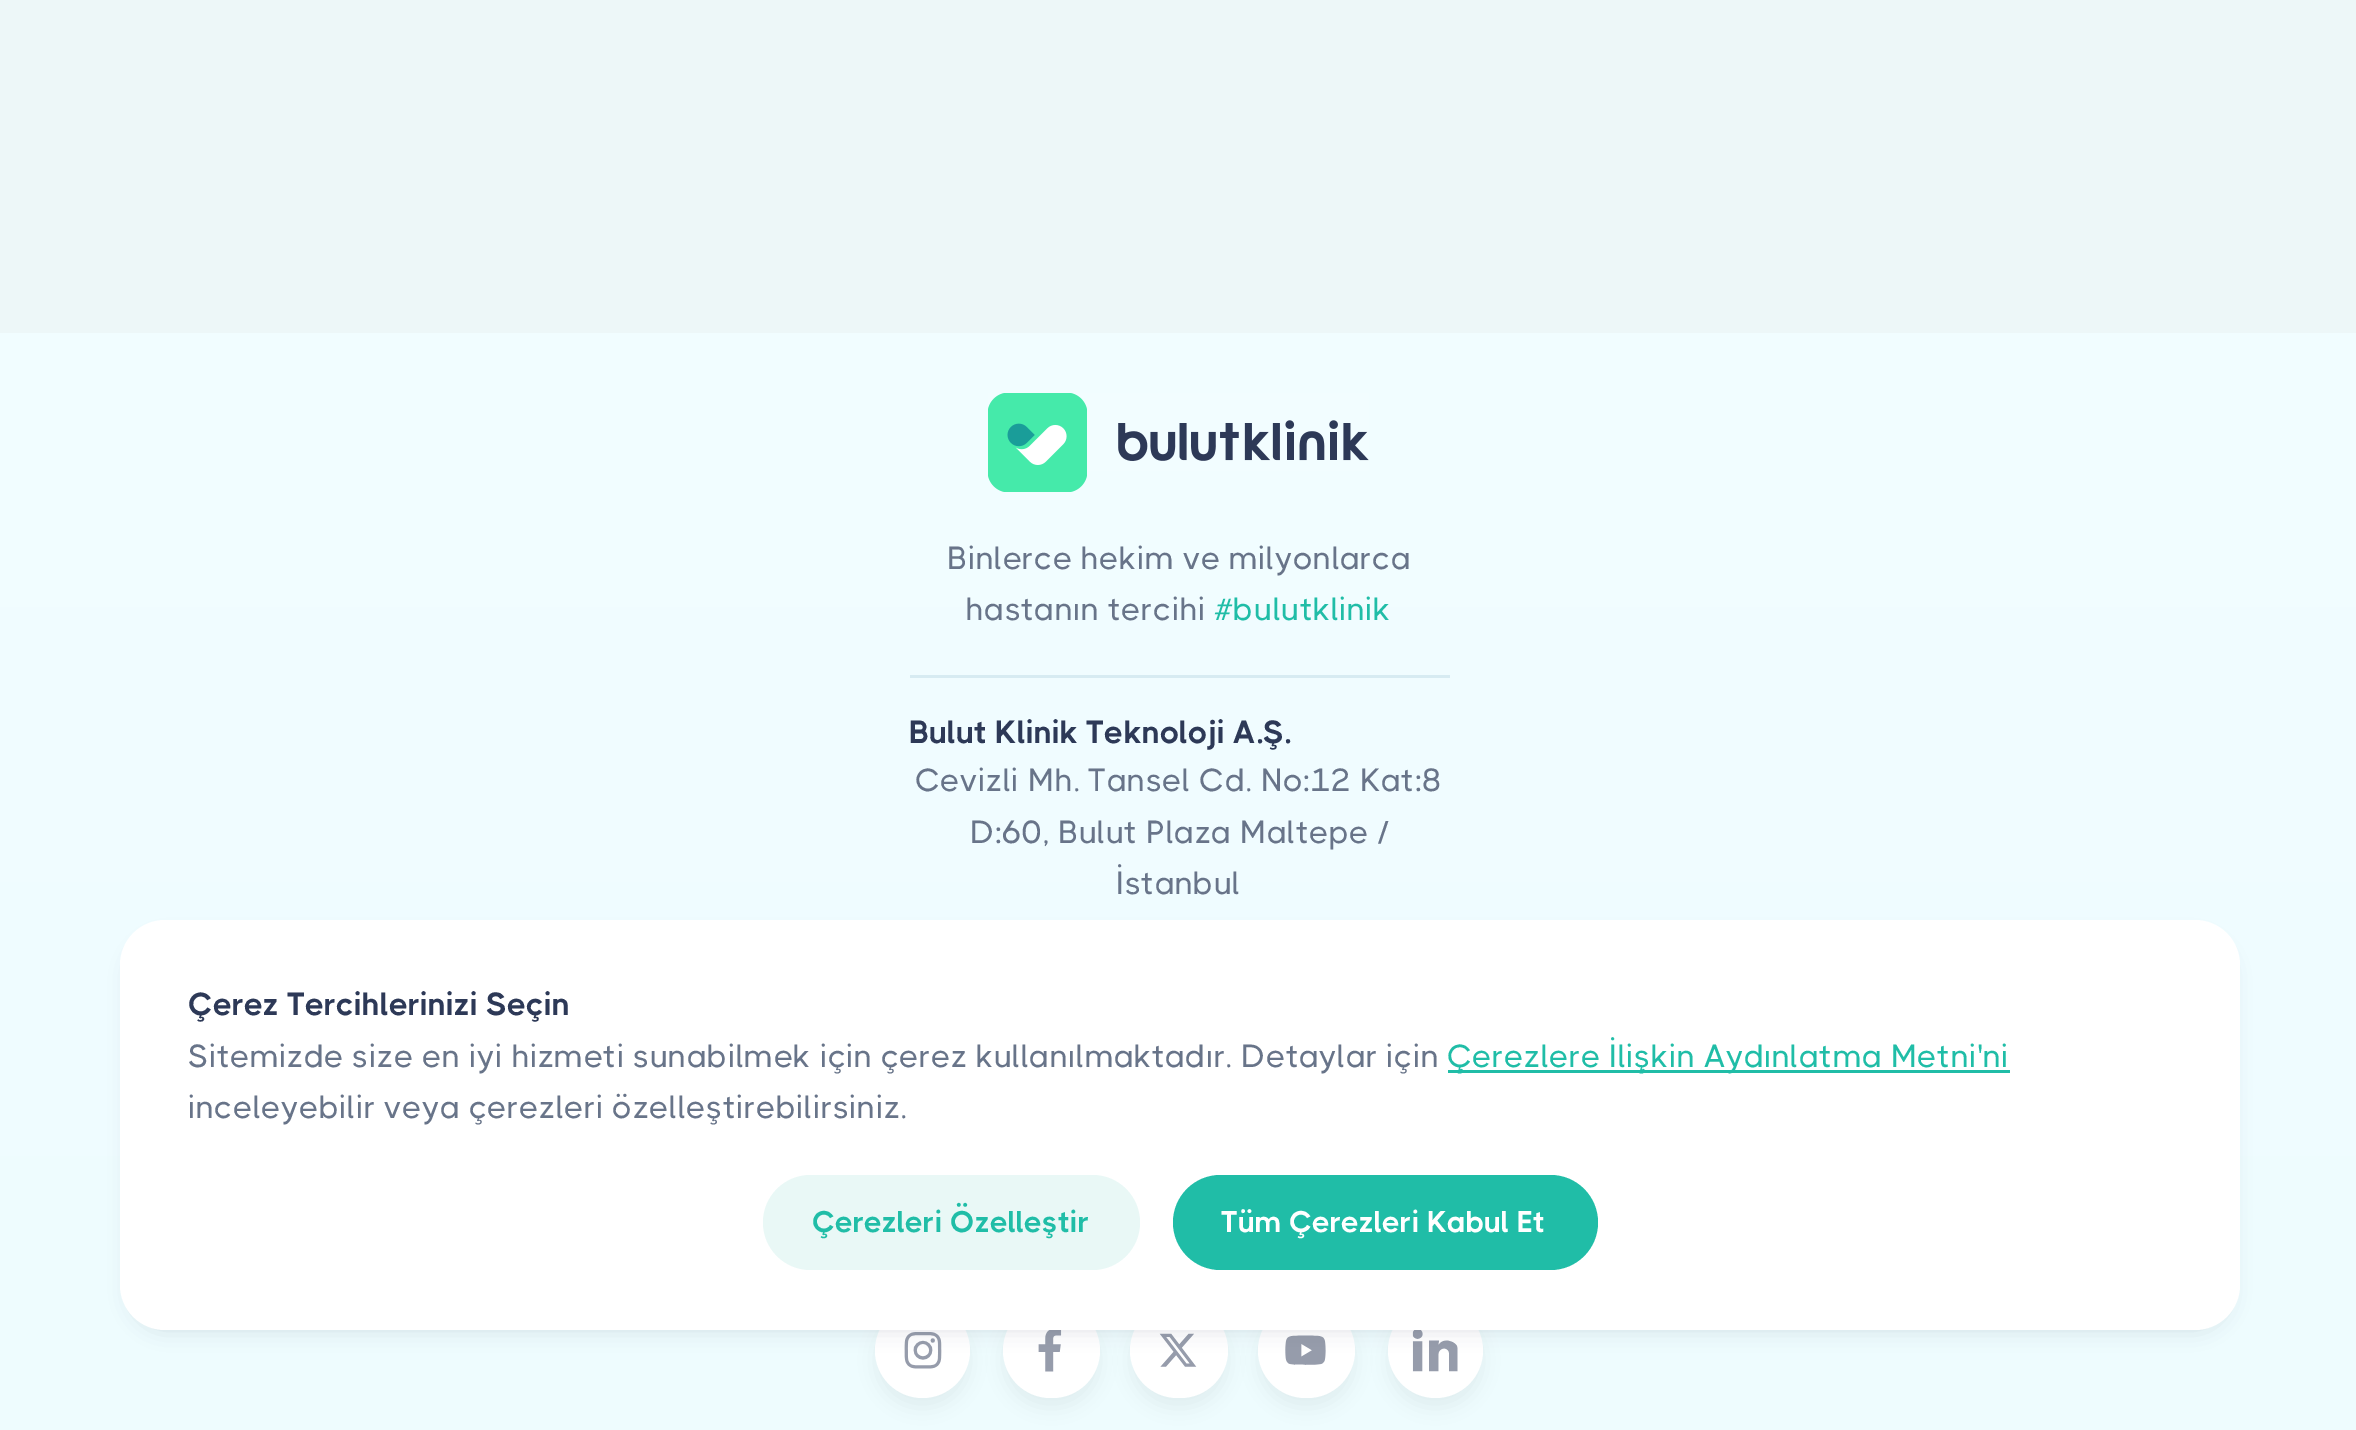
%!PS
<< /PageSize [2356 1430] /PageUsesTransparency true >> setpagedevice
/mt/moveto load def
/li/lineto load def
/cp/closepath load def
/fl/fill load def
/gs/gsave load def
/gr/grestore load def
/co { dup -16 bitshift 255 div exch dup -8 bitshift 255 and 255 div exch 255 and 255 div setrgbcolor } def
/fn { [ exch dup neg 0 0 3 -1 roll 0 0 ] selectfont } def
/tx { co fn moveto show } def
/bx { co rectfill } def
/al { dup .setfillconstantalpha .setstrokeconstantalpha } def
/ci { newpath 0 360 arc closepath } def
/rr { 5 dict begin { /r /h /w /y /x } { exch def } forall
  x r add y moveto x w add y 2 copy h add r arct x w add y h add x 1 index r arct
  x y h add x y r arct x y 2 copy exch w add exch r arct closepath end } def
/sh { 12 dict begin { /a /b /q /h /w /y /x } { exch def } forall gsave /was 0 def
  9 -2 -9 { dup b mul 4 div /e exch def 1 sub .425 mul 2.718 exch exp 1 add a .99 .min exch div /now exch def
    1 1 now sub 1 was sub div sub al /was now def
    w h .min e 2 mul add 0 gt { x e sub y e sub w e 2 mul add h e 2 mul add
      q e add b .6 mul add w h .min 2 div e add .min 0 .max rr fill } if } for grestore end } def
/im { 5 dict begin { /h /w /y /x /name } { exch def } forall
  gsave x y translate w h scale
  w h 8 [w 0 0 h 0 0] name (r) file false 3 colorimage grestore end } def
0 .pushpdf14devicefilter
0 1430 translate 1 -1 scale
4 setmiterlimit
0 0 2356 1430 16#EDF7F8 bx
gs 0 333 mt 2356 333 li 2356 1430 li 0 1430 li cp clip newpath
<< /ShadingType 2 /ColorSpace /DeviceRGB /Coords [1179 332 1179 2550] /Extend [true true] /Function << /FunctionType 2 /Domain [0 1] /C0 [.949 .992 1] /C1 [.918 .984 .996] /N 1 >> >> shfill gr
(media/1.raw) 988 393 381 99 im
910 675 540 3 16#D7EBF2 bx
16#050A1F co
875 1313 95 95 47.5 10 .05 sh
16#FFFFFF co
922.5 1350.5 47.5 ci fl
(media/2.raw) 904 1332 38 37 im
16#050A1F co
1003 1313 97 95 47.5 10 .05 sh
16#FFFFFF co
1003 1303 97 95 47.5 rr fl
(media/3.raw) 1038 1330 24 42 im
16#050A1F co
1130 1313 98 95 47.5 10 .05 sh
16#FFFFFF co
1130 1303 98 95 47.5 rr fl
(media/4.raw) 1159 1333 38 34 im
16#050A1F co
1258 1313 97 95 47.5 10 .05 sh
16#FFFFFF co
1258 1303 97 95 47.5 rr fl
(media/5.raw) 1285 1335 41 30 im
16#050A1F co
1388 1313 95 95 47.5 10 .05 sh
16#FFFFFF co
1435.5 1350.5 47.5 ci fl
(media/6.raw) 1412 1330 46 42 im
16#2D3957 co
130 940 2100 390 35 10 .15 sh
16#FFFFFF co
120 920 2120 410 45 rr fl
1448 1070 562 3 16#20BDA7 bx
16#E9F8F6 co
763 1175 377 95 47.5 rr fl
16#20BDA7 co
1173 1175 425 95 47.5 rr fl
/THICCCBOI-Medium 32 fn
16#687489 co
947 569 mt .4 0 (Binlerce hekim ve milyonlarca) ashow
966 620 mt .4 0 (hastanın tercihi) ashow
16#20BDA7 co
1214 620 mt .4 0 (#bulutklinik) ashow
(Bulut Klinik Teknoloji A.Ş.) 909 743 /THICCCBOI-Bold 32 16#2D3957 tx
/THICCCBOI-Medium 32 fn
16#687489 co
915 791 mt .4 0 (Cevizli Mh. Tansel Cd. No:12 Kat:8) ashow
970 843 mt .4 0 (D:60, Bulut Plaza Maltepe /) ashow
1116 894 mt .4 0 (İstanbul) ashow
(Çerez Tercihlerinizi Seçin) 188 1015 /THICCCBOI-Bold 32 16#2D3957 tx
/THICCCBOI-Medium 32 fn
16#687489 co
188 1067 mt .4 0 (Sitemizde size en iyi hizmeti sunabilmek için çerez kullanılmaktadır. Detaylar için) ashow
16#20BDA7 co
1447 1067 mt .4 0 (Çerezlere İlişkin Aydınlatma Metni'ni) ashow
16#687489 co
188 1118 mt .4 0 (inceleyebilir veya çerezleri özelleştirebilirsiniz.) ashow
(Çerezleri Özelleştir) 812 1232 /THICCCBOI-Bold 30 16#20BDA7 tx
(Tüm Çerezleri Kabul Et) 1221 1232 /THICCCBOI-Bold 30 16#FFFFFF tx
.poppdf14devicefilter showpage
